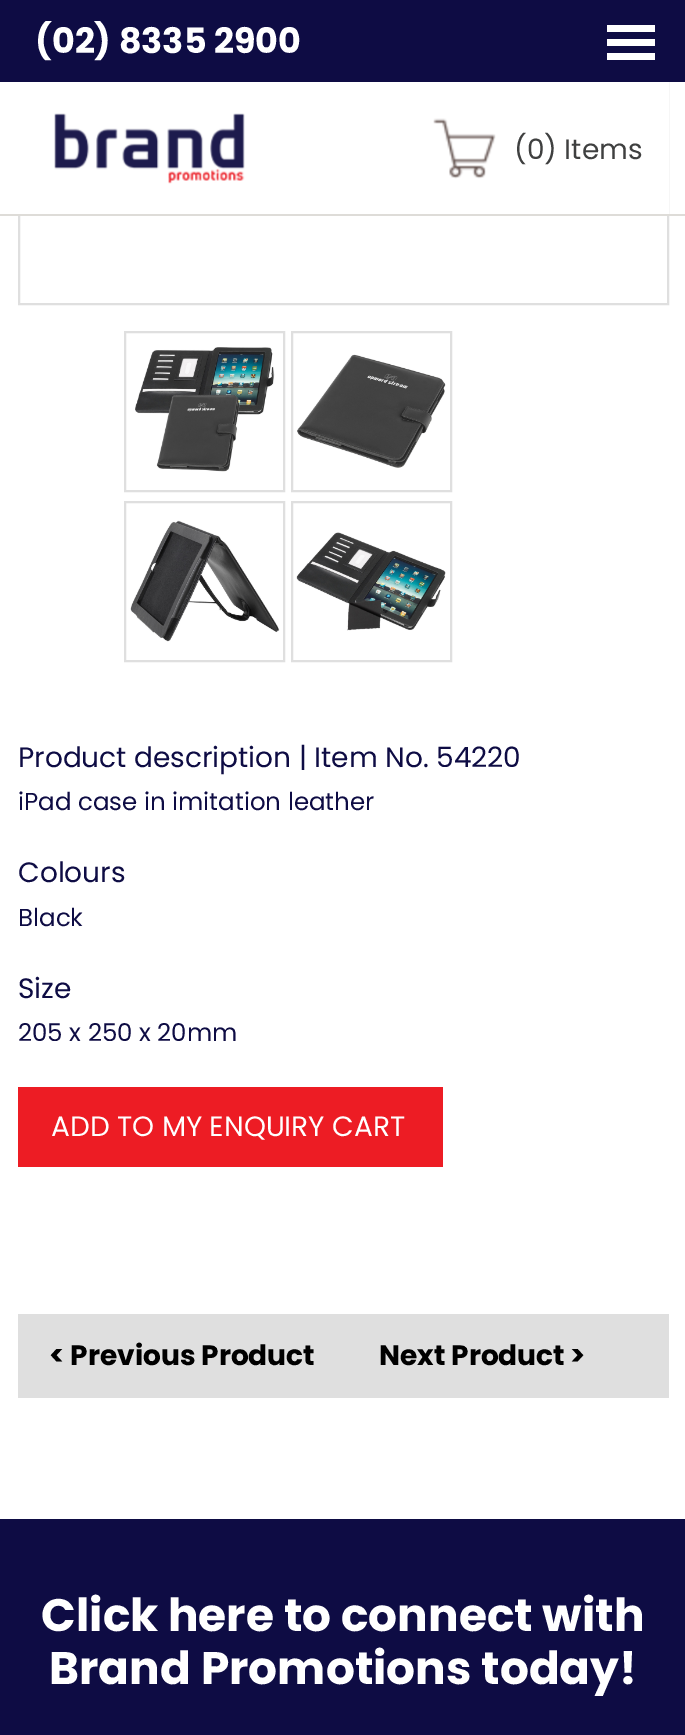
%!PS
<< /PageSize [685 1735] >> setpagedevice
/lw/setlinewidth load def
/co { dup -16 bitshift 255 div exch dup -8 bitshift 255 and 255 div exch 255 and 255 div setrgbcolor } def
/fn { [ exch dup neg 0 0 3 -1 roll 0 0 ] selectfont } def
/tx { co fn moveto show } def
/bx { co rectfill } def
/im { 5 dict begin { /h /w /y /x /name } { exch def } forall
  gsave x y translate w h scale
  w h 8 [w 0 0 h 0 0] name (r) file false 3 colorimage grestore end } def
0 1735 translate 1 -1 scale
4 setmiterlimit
0 0 685 1735 16#FFFFFF bx
16#DFDFDF co
2 lw
19 -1 649 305 rectstroke
0 0 685 82 16#0E0C44 bx
607 39 48 7 16#FFFFFF bx
607 25 48 7 16#FFFFFF bx
607 53 48 7 16#FFFFFF bx
18 82 651 132 16#FFFFFF bx
0 214 685 2 16#DEDCD8 bx
(media/1.raw) 54 113 191 71 im
(media/2.raw) 433 118 63 61 im
16#DFDFDF co
125 332 159 159 rectstroke
(media/3.raw) 135 347 140 125 im
292 332 159 159 rectstroke
(media/4.raw) 297 354 149 114 im
125 502 159 159 rectstroke
(media/5.raw) 130 520 150 122 im
292 502 159 159 rectstroke
(media/6.raw) 296 532 150 99 im
18 1087 425 80 16#ED1C24 bx
18 1314 651 84 16#DFDFDF bx
0 1519 685 216 16#0E0C44 bx
(\(02\) 8335 2900) 35 53 /Poppins-Bold 35 16#FFFFFF tx
(\(0\) Items) 514 159 /Poppins-Regular 28 16#3F4040 tx
(Product description | Item No. 54220) 18 767 /Poppins-Regular 28 16#0E0C44 tx
(iPad case in imitation leather) 18 810 /Poppins-Regular 24.5 16#0E0C44 tx
(Colours) 18 882 /Poppins-Regular 28 16#0E0C44 tx
(Black) 18 926 /Poppins-Regular 24.5 16#0E0C44 tx
(Size) 18 998 /Poppins-Regular 28 16#0E0C44 tx
(205 x 250 x 20mm) 18 1041 /Poppins-Regular 24.5 16#0E0C44 tx
(ADD TO MY ENQUIRY CART) 51 1136 /Poppins-Regular 28 16#FFFFFF tx
(< Previous Product) 49 1365 /Poppins-Bold 28 16#000000 tx
(Next Product >) 379 1365 /Poppins-Bold 28 16#000000 tx
(Click here to connect with) 41 1631 /Poppins-Bold 45.5 16#FFFFFF tx
(Brand Promotions today!) 49 1684 /Poppins-Bold 45.5 16#FFFFFF tx
showpage
